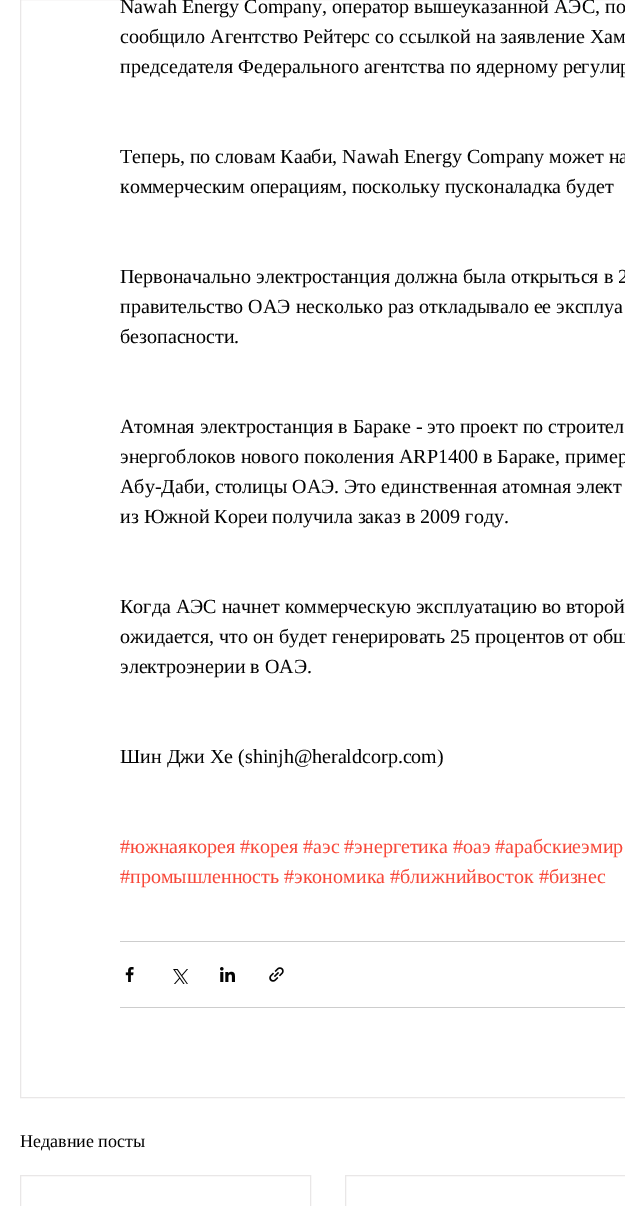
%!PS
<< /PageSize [625 1206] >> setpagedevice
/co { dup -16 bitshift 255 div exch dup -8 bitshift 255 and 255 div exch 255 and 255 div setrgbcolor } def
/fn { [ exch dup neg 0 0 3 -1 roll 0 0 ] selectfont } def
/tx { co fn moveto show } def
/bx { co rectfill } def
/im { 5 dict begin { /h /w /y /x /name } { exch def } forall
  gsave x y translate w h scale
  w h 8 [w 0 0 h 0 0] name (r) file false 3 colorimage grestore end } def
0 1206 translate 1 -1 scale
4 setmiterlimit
0 0 625 1206 16#FFFFFF bx
16#E9E7E7 co
20.5 -.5 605 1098 rectstroke
120 941 505 1 16#CDCDCD bx
(media/1.raw) 125 967 9 15 im
(media/2.raw) 173 969 15 15 im
(media/3.raw) 220 967 15 15 im
(media/4.raw) 269 967 15 15 im
120 1007 505 1 16#CDCDCD bx
16#E9E7E7 co
20.5 1175.5 290 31 rectstroke
345.5 1175.5 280 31 rectstroke
(Nawah Energy Company, оператор вышеуказанной АЭС, по) 120 13 /LiberationSerif-Regular 20 16#030303 tx
(сообщило Агентство Рейтерс со ссылкой на заявление Хам) 120 43 /LiberationSerif-Regular 20 16#030303 tx
(председателя Федерального агентства по ядерному регулир) 120 73 /LiberationSerif-Regular 20 16#030303 tx
(Теперь, по словам Кааби, Nawah Energy Company может на) 120 163 /LiberationSerif-Regular 20 16#030303 tx
(коммерческим операциям, поскольку пусконаладка будет) 120 193 /LiberationSerif-Regular 20 16#030303 tx
(Первоначально электростанция должна была открыться в 2) 120 283 /LiberationSerif-Regular 20 16#030303 tx
(правительство ОАЭ несколько раз откладывало ее эксплуа) 120 313 /LiberationSerif-Regular 20 16#030303 tx
(безопасности.) 120 343 /LiberationSerif-Regular 20 16#030303 tx
(Атомная электростанция в Бараке - это проект по строител) 120 433 /LiberationSerif-Regular 20 16#030303 tx
(энергоблоков нового поколения ARP1400 в Бараке, пример) 120 463 /LiberationSerif-Regular 20 16#030303 tx
(Абу-Даби, столицы ОАЭ. Это единственная атомная элект) 120 493 /LiberationSerif-Regular 20 16#030303 tx
(из Южной Кореи получила заказ в 2009 году.) 120 523 /LiberationSerif-Regular 20 16#030303 tx
(Когда АЭС начнет коммерческую эксплуатацию во второй) 120 613 /LiberationSerif-Regular 20 16#030303 tx
(ожидается, что он будет генерировать 25 процентов от общ) 120 643 /LiberationSerif-Regular 20 16#030303 tx
(электроэнерии в ОАЭ.) 120 673 /LiberationSerif-Regular 20 16#030303 tx
(Шин Джи Хе \(shinjh@heraldcorp.com\)) 120 763 /LiberationSerif-Regular 20 16#030303 tx
(#южнаякорея #корея #аэс #энергетика #оаэ #арабскиеэмир) 120 853 /LiberationSerif-Regular 20 16#F84738 tx
(#промышленность #экономика #ближнийвосток #бизнес) 120 883 /LiberationSerif-Regular 20 16#F84738 tx
(Недавние посты) 20 1147 /LiberationSerif-Regular 18 16#030303 tx
showpage
